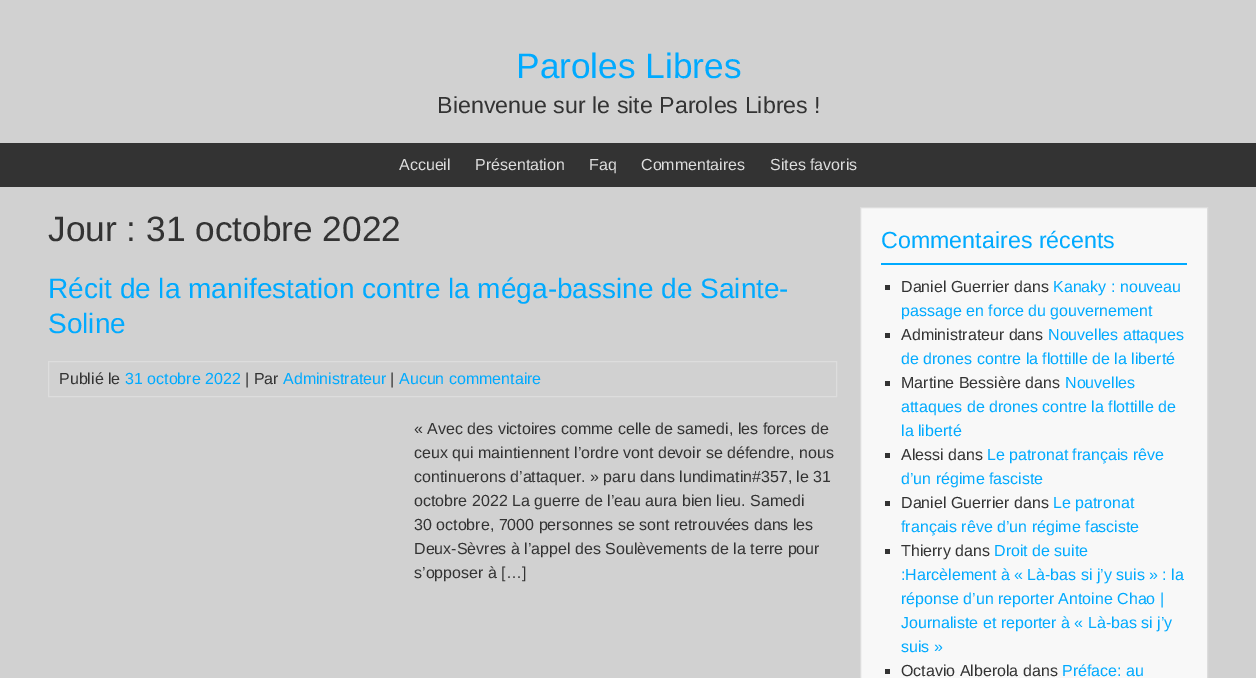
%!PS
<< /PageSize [1256 678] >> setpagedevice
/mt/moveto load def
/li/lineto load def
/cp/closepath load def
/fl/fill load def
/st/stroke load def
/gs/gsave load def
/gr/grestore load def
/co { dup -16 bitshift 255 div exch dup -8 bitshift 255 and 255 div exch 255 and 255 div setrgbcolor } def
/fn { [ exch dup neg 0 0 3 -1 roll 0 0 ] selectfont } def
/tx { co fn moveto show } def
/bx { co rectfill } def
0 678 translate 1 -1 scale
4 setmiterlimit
0 0 1256 678 16#D1D1D1 bx
0 143 1256 44 16#333333 bx
16#DDDDDD co
48.5 361.5 788 35 rectstroke
16#F8F8F8 co
860.5 207.5 mt 1207.5 207.5 li 1207.5 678.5 li 860.5 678.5 li cp gs fl gr
16#DDDDDD co
st
881 263 306 2 16#00AAFF bx
885 285 5 5 16#333333 bx
885 333 5 5 16#333333 bx
885 381 5 5 16#333333 bx
885 453 5 5 16#333333 bx
885 501 5 5 16#333333 bx
885 549 5 5 16#333333 bx
885 669 5 5 16#333333 bx
(Paroles Libres) 516 78 /LiberationSans-Regular 35.25 16#00AAFF tx
(Bienvenue sur le site Paroles Libres !) 437 113 /LiberationSans-Regular 23.25 16#333333 tx
(Accueil) 399 170 /LiberationSans-Regular 16 16#DDDDDD tx
(Présentation) 475 170 /LiberationSans-Regular 16 16#DDDDDD tx
(Faq) 589 170 /LiberationSans-Regular 16 16#DDDDDD tx
(Commentaires) 641 170 /LiberationSans-Regular 16 16#DDDDDD tx
(Sites favoris) 770 170 /LiberationSans-Regular 16 16#DDDDDD tx
(Jour : 31 octobre 2022) 48 241 /LiberationSans-Regular 35.25 16#333333 tx
(Récit de la manifestation contre la méga-bassine de Sainte-) 48 298 /LiberationSans-Regular 28 16#00AAFF tx
(Soline) 48 333 /LiberationSans-Regular 28 16#00AAFF tx
(Publié le) 59 384 /LiberationSans-Regular 16 16#333333 tx
(31 octobre 2022) 125 384 /LiberationSans-Regular 16 16#00AAFF tx
(| Par) 245 384 /LiberationSans-Regular 16 16#333333 tx
(Administrateur) 283 384 /LiberationSans-Regular 16 16#00AAFF tx
(|) 390 384 /LiberationSans-Regular 16 16#333333 tx
(Aucun commentaire) 399 384 /LiberationSans-Regular 16 16#00AAFF tx
(« Avec des victoires comme celle de samedi, les forces de) 414 434 /LiberationSans-Regular 16 16#333333 tx
(ceux qui maintiennent l’ordre vont devoir se défendre, nous) 414 458 /LiberationSans-Regular 16 16#333333 tx
(continuerons d’attaquer. » paru dans lundimatin#357, le 31) 414 482 /LiberationSans-Regular 16 16#333333 tx
(octobre 2022 La guerre de l’eau aura bien lieu. Samedi) 414 506 /LiberationSans-Regular 16 16#333333 tx
(30 octobre, 7000 personnes se sont retrouvées dans les) 414 530 /LiberationSans-Regular 16 16#333333 tx
(Deux-Sèvres à l’appel des Soulèvements de la terre pour) 414 554 /LiberationSans-Regular 16 16#333333 tx
(s’opposer à […]) 414 578 /LiberationSans-Regular 16 16#333333 tx
(Commentaires récents) 881 248 /LiberationSans-Regular 23.25 16#00AAFF tx
(Daniel Guerrier dans) 901 292 /LiberationSans-Regular 16 16#333333 tx
(Kanaky : nouveau) 1053 292 /LiberationSans-Regular 16 16#00AAFF tx
(passage en force du gouvernement) 901 316 /LiberationSans-Regular 16 16#00AAFF tx
(Administrateur dans) 901 340 /LiberationSans-Regular 16 16#333333 tx
(Nouvelles attaques) 1048 340 /LiberationSans-Regular 16 16#00AAFF tx
(de drones contre la flottille de la liberté) 901 364 /LiberationSans-Regular 16 16#00AAFF tx
(Martine Bessière dans) 901 388 /LiberationSans-Regular 16 16#333333 tx
(Nouvelles) 1065 388 /LiberationSans-Regular 16 16#00AAFF tx
(attaques de drones contre la flottille de) 901 412 /LiberationSans-Regular 16 16#00AAFF tx
(la liberté) 901 436 /LiberationSans-Regular 16 16#00AAFF tx
(Alessi dans) 901 460 /LiberationSans-Regular 16 16#333333 tx
(Le patronat français rêve) 987 460 /LiberationSans-Regular 16 16#00AAFF tx
(d’un régime fasciste) 901 484 /LiberationSans-Regular 16 16#00AAFF tx
(Daniel Guerrier dans) 901 508 /LiberationSans-Regular 16 16#333333 tx
(Le patronat) 1053 508 /LiberationSans-Regular 16 16#00AAFF tx
(français rêve d’un régime fasciste) 901 532 /LiberationSans-Regular 16 16#00AAFF tx
(Thierry dans) 901 556 /LiberationSans-Regular 16 16#333333 tx
(Droit de suite) 994 556 /LiberationSans-Regular 16 16#00AAFF tx
(:Harcèlement à « Là-bas si j’y suis » : la) 901 580 /LiberationSans-Regular 16 16#00AAFF tx
(réponse d’un reporter Antoine Chao |) 901 604 /LiberationSans-Regular 16 16#00AAFF tx
(Journaliste et reporter à « Là-bas si j’y) 901 628 /LiberationSans-Regular 16 16#00AAFF tx
(suis ») 901 652 /LiberationSans-Regular 16 16#00AAFF tx
(Octavio Alberola dans) 901 676 /LiberationSans-Regular 16 16#333333 tx
(Préface: au) 1062 676 /LiberationSans-Regular 16 16#00AAFF tx
showpage
